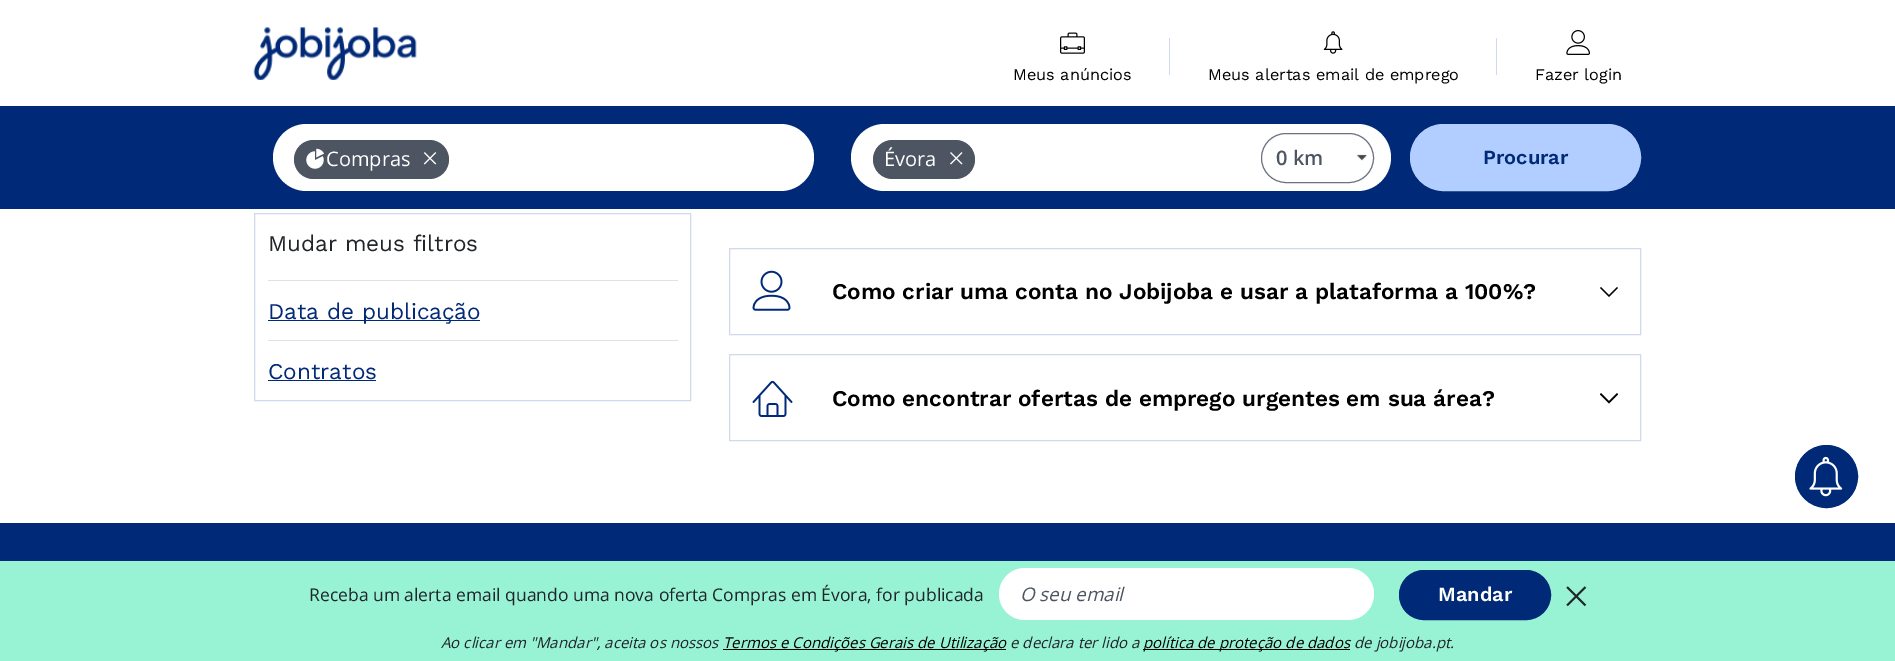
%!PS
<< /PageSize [1895 661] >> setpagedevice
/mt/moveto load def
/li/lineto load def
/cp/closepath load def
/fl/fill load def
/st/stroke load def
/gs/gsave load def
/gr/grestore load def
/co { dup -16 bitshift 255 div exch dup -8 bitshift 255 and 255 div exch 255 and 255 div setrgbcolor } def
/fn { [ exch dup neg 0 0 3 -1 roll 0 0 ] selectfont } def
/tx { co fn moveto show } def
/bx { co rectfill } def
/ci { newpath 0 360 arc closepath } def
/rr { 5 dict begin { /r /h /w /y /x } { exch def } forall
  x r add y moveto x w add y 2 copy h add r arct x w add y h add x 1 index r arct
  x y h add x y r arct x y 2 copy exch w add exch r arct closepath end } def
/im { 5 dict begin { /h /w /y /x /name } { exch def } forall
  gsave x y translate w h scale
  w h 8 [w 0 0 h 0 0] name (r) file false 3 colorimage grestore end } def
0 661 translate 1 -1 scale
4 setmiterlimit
0 0 1895 661 16#FFFFFF bx
(media/1.raw) 253 27 164 53 im
(media/2.raw) 1060 32 25 22 im
1169 38 1 37 16#D1D9ED bx
(media/3.raw) 1323 31 20 23 im
1496 38 1 37 16#D1D9ED bx
(media/4.raw) 1566 30 24 25 im
0 106 1895 103 16#002977 bx
16#FFFFFF co
273 124 541 67 33.5 rr fl
16#4D5562 co
294 140 155 39 19.5 rr fl
(media/5.raw) 306 148 18 21 im
(media/6.raw) 423 152 14 13 im
16#FFFFFF co
851 124 540 67 33.5 rr fl
16#4D5562 co
873 140 102 39 19.5 rr fl
(media/7.raw) 950 152 13 13 im
16#6C727F co
1261.5 133.5 112 49 24.5 rr st
(media/8.raw) 1357 154 10 7 im
16#B2CDFF co
1410.5 124.5 230 66 33 rr gs fl gr
st
16#D1D9ED co
254.5 213.5 436 187 rectstroke
268 280 410 1 16#DEE2E6 bx
268 320 212 1 16#002977 bx
268 340 410 1 16#DEE2E6 bx
268 380 108 1 16#002977 bx
16#D1D9ED co
729.5 248.5 911 86 rectstroke
(media/9.raw) 752 270 39 41 im
16#000000 co
1618 288 mt 1617 287 li 1609 295 li 1601 287 li 1600 288 li 1609 297 li cp fl
16#D1D9ED co
729.5 354.5 911 86 rectstroke
(media/10.raw) 752 380 41 37 im
16#000000 co
1618 394.5 mt 1617 393 li 1609 401 li 1601 393 li 1600 394.5 li 1609 403.5 li cp fl
0 523 1895 38 16#002977 bx
1826.5 476.5 31 ci gs fl gr
st
(media/11.raw) 1809 456 34 41 im
0 561 1895 100 16#97F3D4 bx
16#FFFFFF co
999 568 375 52 26 rr fl
16#002977 co
1399.5 570.5 151 49 24.5 rr gs fl gr
st
(media/12.raw) 1566 586 21 21 im
723 649 283 1 16#000000 bx
1143 649 207 1 16#000000 bx
(Meus anúncios) 1013 80 /WorkSans-Regular 16.25 16#000000 tx
(Meus alertas email de emprego) 1208 80 /WorkSans-Regular 16.25 16#000000 tx
(Fazer login) 1535 80 /WorkSans-Regular 16.25 16#000000 tx
(Compras) 326 166 /OpenSans-Regular 20 16#FFFFFF tx
(Évora) 884 166 /OpenSans-Regular 20 16#FFFFFF tx
(0 km) 1276 165 /OpenSans-SemiBold 20 16#4D5562 tx
(Procurar) 1483 164 /WorkSans-SemiBold 20 16#002977 tx
(Mudar meus filtros) 268 251 /WorkSans-Regular 22.5 16#212529 tx
(Data de publicação) 268 319 /WorkSans-Regular 22.5 16#002977 tx
(Contratos) 268 379 /WorkSans-Regular 22.5 16#002977 tx
(Como criar uma conta no Jobijoba e usar a plataforma a 100%?) 832 299 /WorkSans-SemiBold 22.5 16#000000 tx
(Como encontrar ofertas de emprego urgentes em sua área?) 832 406 /WorkSans-SemiBold 22.5 16#000000 tx
(Receba um alerta email quando uma nova oferta Compras em Évora, for publicada) 309 601 /OpenSans-Regular 17.5 16#212529 tx
(O seu email) 1020 601 /OpenSans-Italic 18.75 16#4D5562 tx
(Mandar) 1438 601 /WorkSans-SemiBold 20 16#FFFFFF tx
(Ao clicar em "Mandar", aceita os nossos) 441 648 /OpenSans-Italic 15 16#212529 tx
(Termos e Condições Gerais de Utilização) 723 648 /OpenSans-Italic 15 16#000000 tx
(e declara ter lido a) 1010 648 /OpenSans-Italic 15 16#212529 tx
(política de proteção de dados) 1143 648 /OpenSans-Italic 15 16#000000 tx
(de jobijoba.pt.) 1354 648 /OpenSans-Italic 15 16#212529 tx
showpage
